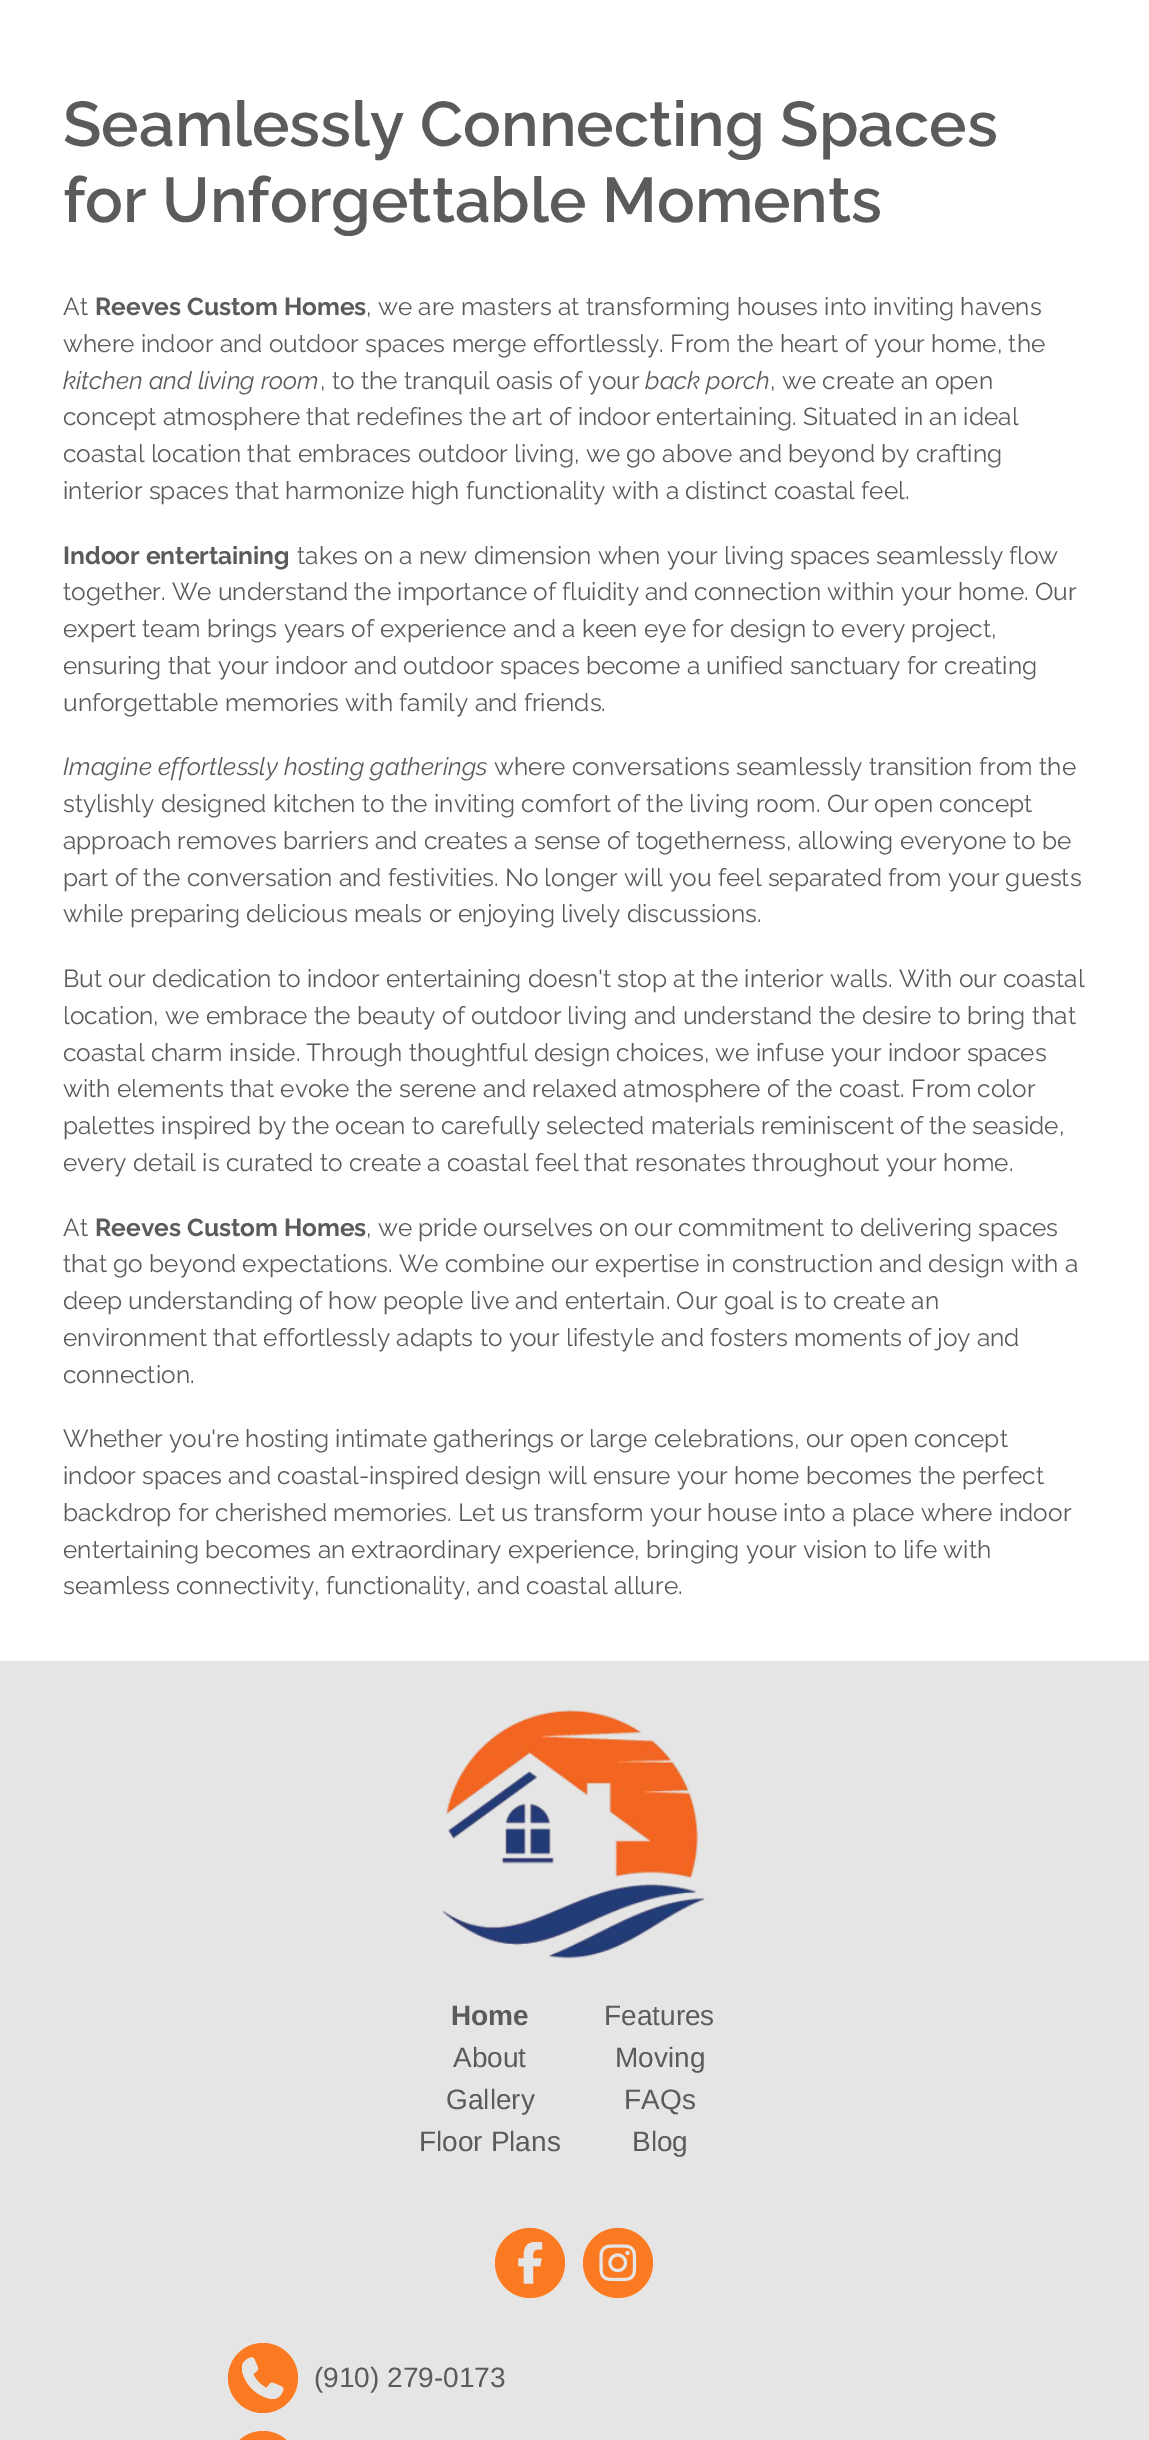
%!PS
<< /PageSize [1149 2440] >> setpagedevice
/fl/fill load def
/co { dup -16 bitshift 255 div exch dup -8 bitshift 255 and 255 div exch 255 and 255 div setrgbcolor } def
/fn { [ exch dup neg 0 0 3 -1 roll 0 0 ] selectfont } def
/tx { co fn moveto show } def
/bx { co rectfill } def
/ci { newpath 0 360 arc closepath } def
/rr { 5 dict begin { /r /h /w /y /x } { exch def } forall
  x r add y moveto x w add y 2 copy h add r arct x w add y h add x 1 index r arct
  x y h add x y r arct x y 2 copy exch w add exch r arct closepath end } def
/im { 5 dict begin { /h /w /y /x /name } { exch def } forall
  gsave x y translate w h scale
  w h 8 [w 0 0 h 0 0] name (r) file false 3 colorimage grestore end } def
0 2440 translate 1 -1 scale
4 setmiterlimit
0 0 1149 2440 16#FFFFFF bx
0 1661 1149 779 16#E5E5E5 bx
(media/1.raw) 442 1709 263 250 im
16#FC7A22 co
530 2263 35 ci fl
(media/2.raw) 518 2242 25 42 im
618 2263 35 ci fl
(media/3.raw) 599 2244 38 38 im
263 2378 35 ci fl
(media/4.raw) 242 2357 42 42 im
228 2431 70 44 35 rr fl
(Seamlessly Connecting Spaces) 63 146 /Raleway-SemiBold 63 16#5B5B5B tx
(for Unforgettable Moments) 63 222 /Raleway-SemiBold 63 16#5B5B5B tx
(At) 63 315 /Raleway-Regular 24.5 16#5B5B5B tx
(Reeves Custom Homes) 95 315 /Raleway-Bold 24.5 16#5B5B5B tx
(, we are masters at transforming houses into inviting havens) 366 315 /Raleway-Regular 24.5 16#5B5B5B tx
(where indoor and outdoor spaces merge effortlessly. From the heart of your home, the) 63 352 /Raleway-Regular 24.5 16#5B5B5B tx
(kitchen and living room) 63 389 /Raleway-Italic 24.5 16#5B5B5B tx
(, to the tranquil oasis of your) 320 389 /Raleway-Regular 24.5 16#5B5B5B tx
(back porch) 645 389 /Raleway-Italic 24.5 16#5B5B5B tx
(, we create an open) 770 389 /Raleway-Regular 24.5 16#5B5B5B tx
(concept atmosphere that redefines the art of indoor entertaining. Situated in an ideal) 63 425 /Raleway-Regular 24.5 16#5B5B5B tx
(coastal location that embraces outdoor living, we go above and beyond by crafting) 63 462 /Raleway-Regular 24.5 16#5B5B5B tx
(interior spaces that harmonize high functionality with a distinct coastal feel.) 63 499 /Raleway-Regular 24.5 16#5B5B5B tx
(Indoor entertaining) 63 564 /Raleway-Bold 24.5 16#5B5B5B tx
(takes on a new dimension when your living spaces seamlessly flow) 297 564 /Raleway-Regular 24.5 16#5B5B5B tx
(together. We understand the importance of fluidity and connection within your home. Our) 63 600 /Raleway-Regular 24.5 16#5B5B5B tx
(expert team brings years of experience and a keen eye for design to every project,) 63 637 /Raleway-Regular 24.5 16#5B5B5B tx
(ensuring that your indoor and outdoor spaces become a unified sanctuary for creating) 63 674 /Raleway-Regular 24.5 16#5B5B5B tx
(unforgettable memories with family and friends.) 63 711 /Raleway-Regular 24.5 16#5B5B5B tx
(Imagine effortlessly hosting gatherings) 63 775 /Raleway-Italic 24.5 16#5B5B5B tx
(where conversations seamlessly transition from the) 494 775 /Raleway-Regular 24.5 16#5B5B5B tx
(stylishly designed kitchen to the inviting comfort of the living room. Our open concept) 63 812 /Raleway-Regular 24.5 16#5B5B5B tx
(approach removes barriers and creates a sense of togetherness, allowing everyone to be) 63 849 /Raleway-Regular 24.5 16#5B5B5B tx
(part of the conversation and festivities. No longer will you feel separated from your guests) 63 886 /Raleway-Regular 24.5 16#5B5B5B tx
(while preparing delicious meals or enjoying lively discussions.) 63 922 /Raleway-Regular 24.5 16#5B5B5B tx
(But our dedication to indoor entertaining doesn't stop at the interior walls. With our coastal) 63 987 /Raleway-Regular 24.5 16#5B5B5B tx
(location, we embrace the beauty of outdoor living and understand the desire to bring that) 63 1024 /Raleway-Regular 24.5 16#5B5B5B tx
(coastal charm inside. Through thoughtful design choices, we infuse your indoor spaces) 63 1061 /Raleway-Regular 24.5 16#5B5B5B tx
(with elements that evoke the serene and relaxed atmosphere of the coast. From color) 63 1097 /Raleway-Regular 24.5 16#5B5B5B tx
(palettes inspired by the ocean to carefully selected materials reminiscent of the seaside,) 63 1134 /Raleway-Regular 24.5 16#5B5B5B tx
(every detail is curated to create a coastal feel that resonates throughout your home.) 63 1171 /Raleway-Regular 24.5 16#5B5B5B tx
(At) 63 1236 /Raleway-Regular 24.5 16#5B5B5B tx
(Reeves Custom Homes) 95 1236 /Raleway-Bold 24.5 16#5B5B5B tx
(, we pride ourselves on our commitment to delivering spaces) 366 1236 /Raleway-Regular 24.5 16#5B5B5B tx
(that go beyond expectations. We combine our expertise in construction and design with a) 63 1272 /Raleway-Regular 24.5 16#5B5B5B tx
(deep understanding of how people live and entertain. Our goal is to create an) 63 1309 /Raleway-Regular 24.5 16#5B5B5B tx
(environment that effortlessly adapts to your lifestyle and fosters moments of joy and) 63 1346 /Raleway-Regular 24.5 16#5B5B5B tx
(connection.) 63 1383 /Raleway-Regular 24.5 16#5B5B5B tx
(Whether you're hosting intimate gatherings or large celebrations, our open concept) 63 1447 /Raleway-Regular 24.5 16#5B5B5B tx
(indoor spaces and coastal-inspired design will ensure your home becomes the perfect) 63 1484 /Raleway-Regular 24.5 16#5B5B5B tx
(backdrop for cherished memories. Let us transform your house into a place where indoor) 63 1521 /Raleway-Regular 24.5 16#5B5B5B tx
(entertaining becomes an extraordinary experience, bringing your vision to life with) 63 1558 /Raleway-Regular 24.5 16#5B5B5B tx
(seamless connectivity, functionality, and coastal allure.) 63 1594 /Raleway-Regular 24.5 16#5B5B5B tx
(Home) 451 2025 /LiberationSans-Bold 28 16#5B5B5B tx
(Features) 604 2025 /LiberationSans-Regular 28 16#5B5B5B tx
(About) 453 2067 /LiberationSans-Regular 28 16#5B5B5B tx
(Moving) 615 2067 /LiberationSans-Regular 28 16#5B5B5B tx
(Gallery) 446 2109 /LiberationSans-Regular 28 16#5B5B5B tx
(FAQs) 624 2109 /LiberationSans-Regular 28 16#5B5B5B tx
(Floor Plans) 419 2151 /LiberationSans-Regular 28 16#5B5B5B tx
(Blog) 632 2151 /LiberationSans-Regular 28 16#5B5B5B tx
(\(910\) 279-0173) 314 2387 /LiberationSans-Regular 28 16#5B5B5B tx
showpage
